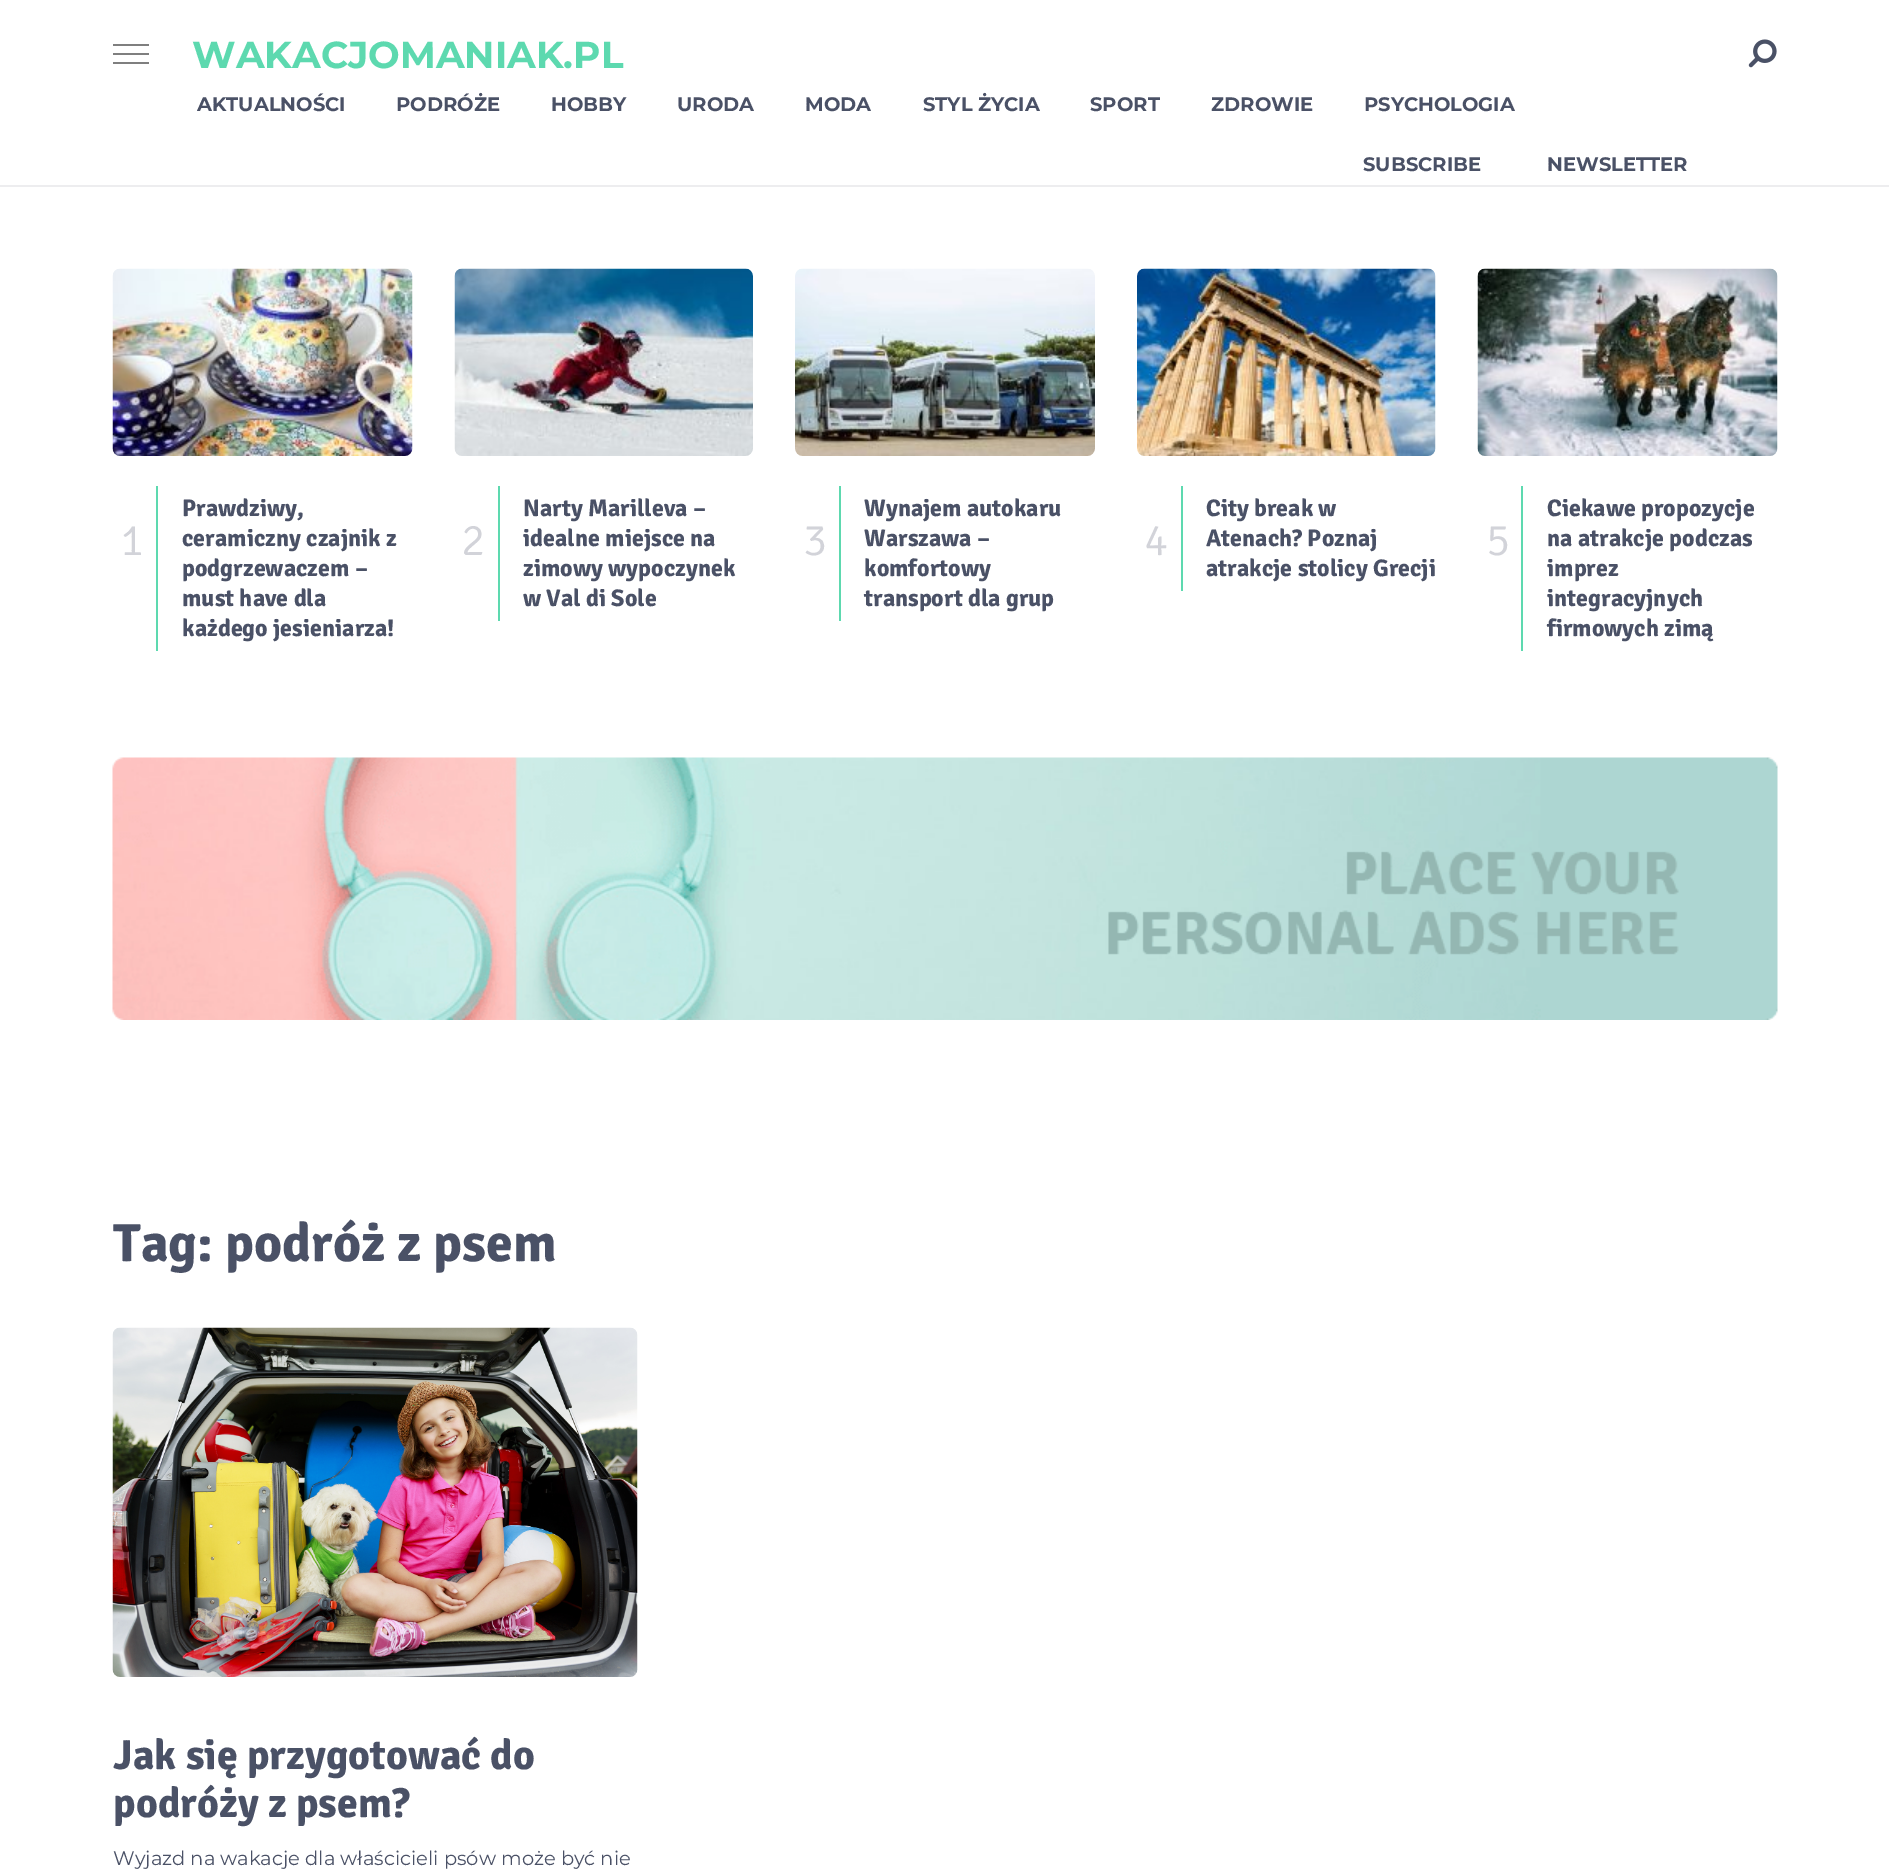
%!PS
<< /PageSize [1889 1875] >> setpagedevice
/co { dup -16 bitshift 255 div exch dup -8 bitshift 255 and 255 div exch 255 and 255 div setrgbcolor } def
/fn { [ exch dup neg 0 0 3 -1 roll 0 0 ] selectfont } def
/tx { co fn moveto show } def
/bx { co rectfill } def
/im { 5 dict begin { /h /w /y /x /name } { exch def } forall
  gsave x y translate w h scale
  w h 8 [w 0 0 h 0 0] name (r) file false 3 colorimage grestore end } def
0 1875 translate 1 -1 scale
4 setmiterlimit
0 0 1889 1875 16#FFFFFF bx
0 185 1889 2 16#EDEDEF bx
113 44 36 2 16#7F7F7F bx
113 53 36 2 16#7F7F7F bx
113 62 36 2 16#7F7F7F bx
(media/1.raw) 1748 39 29 29 im
(media/2.raw) 112 268 301 188 im
156 486 2 165 16#5DD9AF bx
(media/3.raw) 454 268 299 188 im
498 486 2 135 16#5DD9AF bx
(media/4.raw) 795 268 300 188 im
839 486 2 135 16#5DD9AF bx
(media/5.raw) 1137 268 299 188 im
1181 486 2 105 16#5DD9AF bx
(media/6.raw) 1477 268 301 188 im
1521 486 2 165 16#5DD9AF bx
(media/7.raw) 112 757 1666 263 im
(media/8.raw) 112 1327 526 350 im
(WAKACJOMANIAK.PL) 192 68 /Montserrat-Bold 37.5 16#5DD9AF tx
(AKTUALNOŚCI) 197 111 /Montserrat-Bold 19.5 16#4A5166 tx
(PODRÓŻE) 396 111 /Montserrat-Bold 19.5 16#4A5166 tx
(HOBBY) 551 111 /Montserrat-Bold 19.5 16#4A5166 tx
(URODA) 677 111 /Montserrat-Bold 19.5 16#4A5166 tx
(MODA) 805 111 /Montserrat-Bold 19.5 16#4A5166 tx
(STYL ŻYCIA) 923 111 /Montserrat-Bold 19.5 16#4A5166 tx
(SPORT) 1090 111 /Montserrat-Bold 19.5 16#4A5166 tx
(ZDROWIE) 1211 111 /Montserrat-Bold 19.5 16#4A5166 tx
(PSYCHOLOGIA) 1364 111 /Montserrat-Bold 19.5 16#4A5166 tx
(SUBSCRIBE) 1363 171 /Montserrat-Bold 19.5 16#4A5166 tx
(NEWSLETTER) 1547 171 /Montserrat-Bold 19.5 16#4A5166 tx
(1) 120 555 /Signika-Light 45 16#D2D3D9 tx
(Prawdziwy,) 182 516 /Signika-Bold 24 16#4A5166 tx
(ceramiczny czajnik z) 182 546 /Signika-Bold 24 16#4A5166 tx
(podgrzewaczem –) 182 576 /Signika-Bold 24 16#4A5166 tx
(must have dla) 182 606 /Signika-Bold 24 16#4A5166 tx
(każdego jesieniarza!) 182 636 /Signika-Bold 24 16#4A5166 tx
(2) 461 555 /Signika-Light 45 16#D2D3D9 tx
(Narty Marilleva –) 523 516 /Signika-Bold 24 16#4A5166 tx
(idealne miejsce na) 523 546 /Signika-Bold 24 16#4A5166 tx
(zimowy wypoczynek) 523 576 /Signika-Bold 24 16#4A5166 tx
(w Val di Sole) 523 606 /Signika-Bold 24 16#4A5166 tx
(3) 803 555 /Signika-Light 45 16#D2D3D9 tx
(Wynajem autokaru) 864 516 /Signika-Bold 24 16#4A5166 tx
(Warszawa –) 864 546 /Signika-Bold 24 16#4A5166 tx
(komfortowy) 864 576 /Signika-Bold 24 16#4A5166 tx
(transport dla grup) 864 606 /Signika-Bold 24 16#4A5166 tx
(4) 1144 555 /Signika-Light 45 16#D2D3D9 tx
(City break w) 1206 516 /Signika-Bold 24 16#4A5166 tx
(Atenach? Poznaj) 1206 546 /Signika-Bold 24 16#4A5166 tx
(atrakcje stolicy Grecji) 1206 576 /Signika-Bold 24 16#4A5166 tx
(5) 1486 555 /Signika-Light 45 16#D2D3D9 tx
(Ciekawe propozycje) 1547 516 /Signika-Bold 24 16#4A5166 tx
(na atrakcje podczas) 1547 546 /Signika-Bold 24 16#4A5166 tx
(imprez) 1547 576 /Signika-Bold 24 16#4A5166 tx
(integracyjnych) 1547 606 /Signika-Bold 24 16#4A5166 tx
(firmowych zimą) 1547 636 /Signika-Bold 24 16#4A5166 tx
(Tag: podróż z psem) 113 1261 /Signika-Bold 54 16#4A5166 tx
(Jak się przygotować do) 113 1769 /Signika-Bold 42 16#4A5166 tx
(podróży z psem?) 113 1817 /Signika-Bold 42 16#4A5166 tx
(Wyjazd na wakacje dla właścicieli psów może być nie) 113 1865 /Montserrat-Regular 19.5 16#4A5166 tx
showpage
